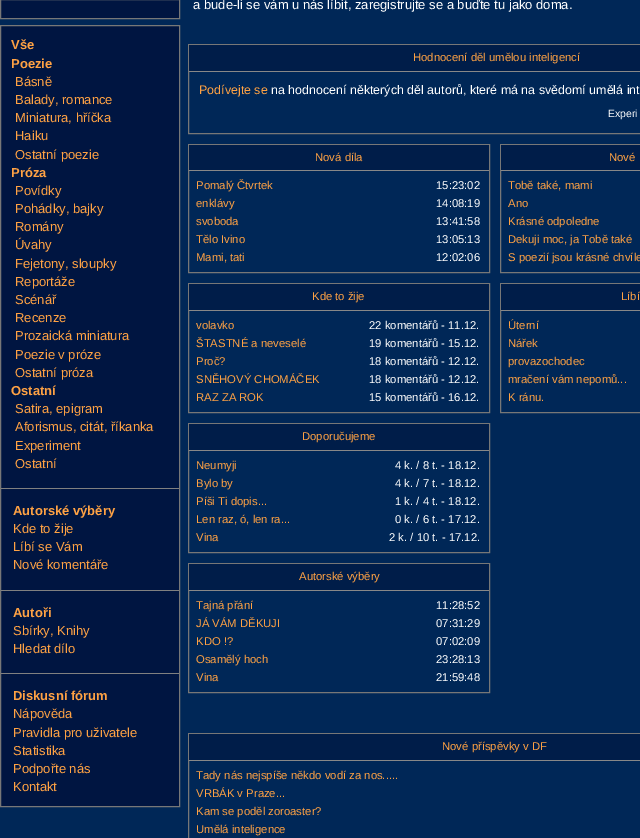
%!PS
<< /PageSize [640 838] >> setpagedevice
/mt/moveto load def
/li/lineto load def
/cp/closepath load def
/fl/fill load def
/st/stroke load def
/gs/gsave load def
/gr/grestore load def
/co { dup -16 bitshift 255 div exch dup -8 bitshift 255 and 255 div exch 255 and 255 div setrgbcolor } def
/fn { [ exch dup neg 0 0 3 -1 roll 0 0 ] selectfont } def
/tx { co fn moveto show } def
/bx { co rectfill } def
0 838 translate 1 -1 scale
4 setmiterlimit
0 0 640 838 16#002757 bx
16#001541 co
.5 -.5 mt 179.5 -.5 li 179.5 18.5 li .5 18.5 li cp gs fl gr
16#777777 co
st
16#001541 co
.5 25.5 mt 179.5 25.5 li 179.5 806.5 li .5 806.5 li cp gs fl gr
16#777777 co
st
1 488 178 1 16#808080 bx
1 590 178 1 16#808080 bx
1 673 178 1 16#808080 bx
16#777777 co
188.5 44.5 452 89 rectstroke
189 45 451 26 16#001D49 bx
189 71 451 1 16#888888 bx
16#777777 co
188.5 144.5 301 128 rectstroke
189 145 300 25 16#001D49 bx
189 170 300 1 16#888888 bx
16#777777 co
500.5 144.5 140 128 rectstroke
501 145 139 25 16#001D49 bx
501 170 139 1 16#888888 bx
16#777777 co
188.5 283.5 301 129 rectstroke
189 284 300 26 16#001D49 bx
189 310 300 1 16#888888 bx
16#777777 co
500.5 283.5 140 129 rectstroke
501 284 139 26 16#001D49 bx
501 310 139 1 16#888888 bx
16#777777 co
188.5 423.5 301 129 rectstroke
189 424 300 26 16#001D49 bx
189 450 300 1 16#888888 bx
16#777777 co
188.5 563.5 301 129 rectstroke
189 564 300 26 16#001D49 bx
189 590 300 1 16#888888 bx
16#777777 co
188.5 733.5 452 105 rectstroke
189 734 451 26 16#001D49 bx
189 760 451 1 16#888888 bx
(Vše) 11 49 /LiberationSans-Bold 13 16#FFA244 tx
(Poezie) 11 68 /LiberationSans-Bold 13 16#FFA244 tx
(Básně) 15 86 /LiberationSans-Regular 13 16#FFA244 tx
(Balady, romance) 15 104 /LiberationSans-Regular 13 16#FFA244 tx
(Miniatura, hříčka) 15 122 /LiberationSans-Regular 13 16#FFA244 tx
(Haiku) 15 140 /LiberationSans-Regular 13 16#FFA244 tx
(Ostatní poezie) 15 159 /LiberationSans-Regular 13 16#FFA244 tx
(Próza) 11 177 /LiberationSans-Bold 13 16#FFA244 tx
(Povídky) 15 195 /LiberationSans-Regular 13 16#FFA244 tx
(Pohádky, bajky) 15 213 /LiberationSans-Regular 13 16#FFA244 tx
(Romány) 15 231 /LiberationSans-Regular 13 16#FFA244 tx
(Úvahy) 15 249 /LiberationSans-Regular 13 16#FFA244 tx
(Fejetony, sloupky) 15 268 /LiberationSans-Regular 13 16#FFA244 tx
(Reportáže) 15 286 /LiberationSans-Regular 13 16#FFA244 tx
(Scénář) 15 304 /LiberationSans-Regular 13 16#FFA244 tx
(Recenze) 15 322 /LiberationSans-Regular 13 16#FFA244 tx
(Prozaická miniatura) 15 340 /LiberationSans-Regular 13 16#FFA244 tx
(Poezie v próze) 15 359 /LiberationSans-Regular 13 16#FFA244 tx
(Ostatní próza) 15 377 /LiberationSans-Regular 13 16#FFA244 tx
(Ostatní) 11 395 /LiberationSans-Bold 13 16#FFA244 tx
(Satira, epigram) 15 413 /LiberationSans-Regular 13 16#FFA244 tx
(Aforismus, citát, říkanka) 15 431 /LiberationSans-Regular 13 16#FFA244 tx
(Experiment) 15 450 /LiberationSans-Regular 13 16#FFA244 tx
(Ostatní) 15 468 /LiberationSans-Regular 13 16#FFA244 tx
(Autorské výběry) 13 515 /LiberationSans-Bold 13 16#FFA244 tx
(Kde to žije) 13 533 /LiberationSans-Regular 13 16#FFA244 tx
(Líbí se Vám) 13 551 /LiberationSans-Regular 13 16#FFA244 tx
(Nové komentáře) 13 569 /LiberationSans-Regular 13 16#FFA244 tx
(Autoři) 13 617 /LiberationSans-Bold 13 16#FFA244 tx
(Sbírky, Knihy) 13 635 /LiberationSans-Regular 13 16#FFA244 tx
(Hledat dílo) 13 653 /LiberationSans-Regular 13 16#FFA244 tx
(Diskusní fórum) 13 700 /LiberationSans-Bold 13 16#FFA244 tx
(Nápověda) 13 718 /LiberationSans-Regular 13 16#FFA244 tx
(Pravidla pro uživatele) 13 737 /LiberationSans-Regular 13 16#FFA244 tx
(Statistika) 13 755 /LiberationSans-Regular 13 16#FFA244 tx
(Podpořte nás) 13 773 /LiberationSans-Regular 13 16#FFA244 tx
(Kontakt) 13 791 /LiberationSans-Regular 13 16#FFA244 tx
(a bude-li se vám u nás líbit, zaregistrujte se a buďte tu jako doma.) 193 9 /LiberationSans-Regular 13 16#FFFFFF tx
(Hodnocení děl umělou inteligencí) 413 61 /LiberationSans-Regular 11.3 16#FFA244 tx
(Podívejte se) 199 94 /LiberationSans-Regular 12.45 16#FFA244 tx
(na hodnocení některých děl autorů, které má na svědomí umělá int) 271 94 /LiberationSans-Regular 12.45 16#FFFFFF tx
(Experi) 608 117 /LiberationSans-Regular 10.5 16#FFFFFF tx
(Nová díla) 315 161 /LiberationSans-Regular 11.3 16#FFA244 tx
(Pomalý Čtvrtek) 196 189 /LiberationSans-Regular 11.3 16#FFA244 tx
(15:23:02) 436 189 /LiberationSans-Regular 11.3 16#FFFFFF tx
(enklávy) 196 207 /LiberationSans-Regular 11.3 16#FFA244 tx
(14:08:19) 436 207 /LiberationSans-Regular 11.3 16#FFFFFF tx
(svoboda) 196 225 /LiberationSans-Regular 11.3 16#FFA244 tx
(13:41:58) 436 225 /LiberationSans-Regular 11.3 16#FFFFFF tx
(Tělo Ivino) 196 243 /LiberationSans-Regular 11.3 16#FFA244 tx
(13:05:13) 436 243 /LiberationSans-Regular 11.3 16#FFFFFF tx
(Mami, tati) 196 261 /LiberationSans-Regular 11.3 16#FFA244 tx
(12:02:06) 436 261 /LiberationSans-Regular 11.3 16#FFFFFF tx
(Nové) 609 161 /LiberationSans-Regular 11.3 16#FFA244 tx
(Tobě také, mami) 508 189 /LiberationSans-Regular 11.3 16#FFA244 tx
(Ano) 508 207 /LiberationSans-Regular 11.3 16#FFA244 tx
(Krásné odpoledne) 508 225 /LiberationSans-Regular 11.3 16#FFA244 tx
(Dekuji moc, ja Tobě také) 508 243 /LiberationSans-Regular 11.3 16#FFA244 tx
(S poezií jsou krásné chvíle) 508 261 /LiberationSans-Regular 11.3 16#FFA244 tx
(Kde to žije) 312 300 /LiberationSans-Regular 11.3 16#FFA244 tx
(volavko) 196 329 /LiberationSans-Regular 11.3 16#FFA244 tx
(22 komentářů - 11.12.) 369 329 /LiberationSans-Regular 11.3 16#FFFFFF tx
(ŠTASTNÉ a neveselé) 196 347 /LiberationSans-Regular 11.3 16#FFA244 tx
(19 komentářů - 15.12.) 369 347 /LiberationSans-Regular 11.3 16#FFFFFF tx
(Proč?) 196 365 /LiberationSans-Regular 11.3 16#FFA244 tx
(18 komentářů - 12.12.) 369 365 /LiberationSans-Regular 11.3 16#FFFFFF tx
(SNĚHOVÝ CHOMÁČEK) 196 383 /LiberationSans-Regular 11.3 16#FFA244 tx
(18 komentářů - 12.12.) 369 383 /LiberationSans-Regular 11.3 16#FFFFFF tx
(RAZ ZA ROK) 196 401 /LiberationSans-Regular 11.3 16#FFA244 tx
(15 komentářů - 16.12.) 369 401 /LiberationSans-Regular 11.3 16#FFFFFF tx
(Líbí) 621 300 /LiberationSans-Regular 11.3 16#FFA244 tx
(Úterní) 508 329 /LiberationSans-Regular 11.3 16#FFA244 tx
(Nářek) 508 347 /LiberationSans-Regular 11.3 16#FFA244 tx
(provazochodec) 508 365 /LiberationSans-Regular 11.3 16#FFA244 tx
(mračení vám nepomů...) 508 383 /LiberationSans-Regular 11.3 16#FFA244 tx
(K ránu.) 508 401 /LiberationSans-Regular 11.3 16#FFA244 tx
(Doporučujeme) 302 440 /LiberationSans-Regular 11.3 16#FFA244 tx
(Neumyji) 196 469 /LiberationSans-Regular 11.3 16#FFA244 tx
(4 k. / 8 t. - 18.12.) 395 469 /LiberationSans-Regular 11.3 16#FFFFFF tx
(Bylo by) 196 487 /LiberationSans-Regular 11.3 16#FFA244 tx
(4 k. / 7 t. - 18.12.) 395 487 /LiberationSans-Regular 11.3 16#FFFFFF tx
(Píši Ti dopis...) 196 505 /LiberationSans-Regular 11.3 16#FFA244 tx
(1 k. / 4 t. - 18.12.) 395 505 /LiberationSans-Regular 11.3 16#FFFFFF tx
(Len raz, ó, len ra...) 196 523 /LiberationSans-Regular 11.3 16#FFA244 tx
(0 k. / 6 t. - 17.12.) 395 523 /LiberationSans-Regular 11.3 16#FFFFFF tx
(Vina) 196 541 /LiberationSans-Regular 11.3 16#FFA244 tx
(2 k. / 10 t. - 17.12.) 389 541 /LiberationSans-Regular 11.3 16#FFFFFF tx
(Autorské výběry) 299 580 /LiberationSans-Regular 11.3 16#FFA244 tx
(Tajná přání) 196 609 /LiberationSans-Regular 11.3 16#FFA244 tx
(11:28:52) 436 609 /LiberationSans-Regular 11.3 16#FFFFFF tx
(JÁ VÁM DĚKUJI) 196 627 /LiberationSans-Regular 11.3 16#FFA244 tx
(07:31:29) 436 627 /LiberationSans-Regular 11.3 16#FFFFFF tx
(KDO !?) 196 645 /LiberationSans-Regular 11.3 16#FFA244 tx
(07:02:09) 436 645 /LiberationSans-Regular 11.3 16#FFFFFF tx
(Osamělý hoch) 196 663 /LiberationSans-Regular 11.3 16#FFA244 tx
(23:28:13) 436 663 /LiberationSans-Regular 11.3 16#FFFFFF tx
(Vina) 196 681 /LiberationSans-Regular 11.3 16#FFA244 tx
(21:59:48) 436 681 /LiberationSans-Regular 11.3 16#FFFFFF tx
(Nové příspěvky v DF) 442 750 /LiberationSans-Regular 11.3 16#FFA244 tx
(Tady nás nejspíše někdo vodí za nos.....) 196 779 /LiberationSans-Regular 11.3 16#FFA244 tx
(VRBÁK v Praze...) 196 797 /LiberationSans-Regular 11.3 16#FFA244 tx
(Kam se poděl zoroaster?) 196 815 /LiberationSans-Regular 11.3 16#FFA244 tx
(Umělá inteligence) 196 833 /LiberationSans-Regular 11.3 16#FFA244 tx
showpage
